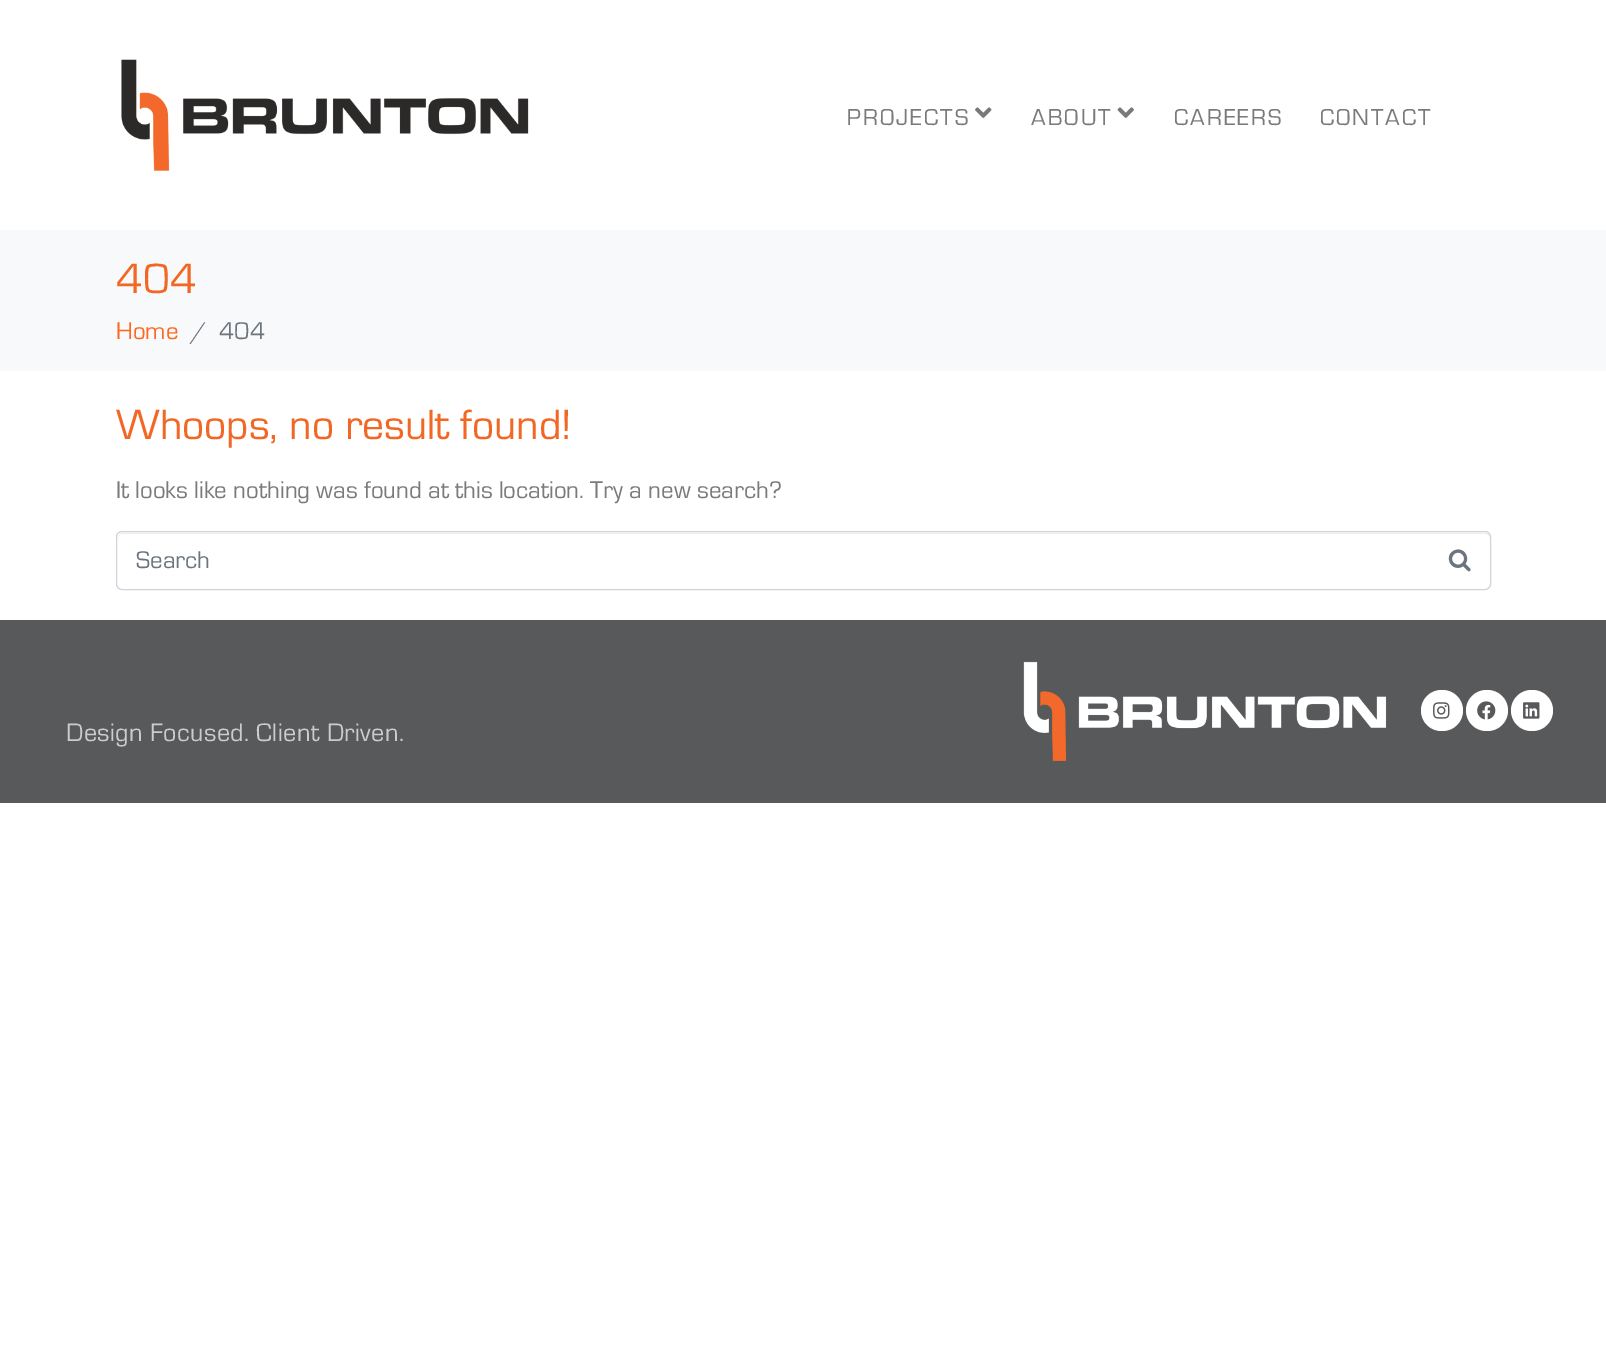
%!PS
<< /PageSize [1606 1368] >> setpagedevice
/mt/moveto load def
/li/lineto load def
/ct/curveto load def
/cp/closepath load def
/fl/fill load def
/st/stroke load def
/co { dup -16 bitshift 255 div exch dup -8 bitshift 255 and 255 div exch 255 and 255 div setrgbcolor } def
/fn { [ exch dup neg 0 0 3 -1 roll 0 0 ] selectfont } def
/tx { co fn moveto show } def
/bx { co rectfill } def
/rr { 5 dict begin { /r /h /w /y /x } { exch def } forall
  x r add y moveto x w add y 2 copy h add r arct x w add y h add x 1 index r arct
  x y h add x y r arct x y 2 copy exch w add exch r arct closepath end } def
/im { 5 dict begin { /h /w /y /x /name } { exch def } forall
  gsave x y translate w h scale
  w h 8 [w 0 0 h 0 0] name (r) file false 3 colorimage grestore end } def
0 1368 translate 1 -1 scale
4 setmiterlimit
0 0 1606 1368 16#FFFFFF bx
(media/1.raw) 121 59 408 112 im
(media/2.raw) 975 107 17 11 im
(media/3.raw) 1117 107 17 11 im
0 230 1606 141 16#F8F9FA bx
16#ECECEC co
122 534 mt 1485 534 li 1488 534 1490 536 1490 539 ct 1490 536 1488 533 1485 533 ct 123 533 li 120 533 118 536 118 539 ct 118 536 120 534 122 534 ct cp fl
16#CED4DA co
116.5 531.5 1374 58 5.5 rr st
(media/4.raw) 1448 549 23 23 im
0 620 1606 183 16#58595B bx
(media/5.raw) 1023 661 364 100 im
16#FFFFFF co
1421 690 42 41 20.5 rr fl
(media/6.raw) 1433 702 17 17 im
1466 690 42 41 20.5 rr fl
(media/7.raw) 1477 701 19 19 im
1511 690 42 41 20.5 rr fl
(media/8.raw) 1523 702 17 17 im
/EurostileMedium-Medium 21.25 fn
16#7A7A7A co
847 125 mt 2 0 (PROJECTS) ashow
1031 125 mt 2 0 (ABOUT) ashow
1174 125 mt 2 0 (CAREERS) ashow
1320 125 mt 2 0 (CONTACT) ashow
(404) 116 293 /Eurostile-Regular 43.75 16#F26724 tx
(Home) 116 339 /Eurostile-Regular 25 16#FF671F tx
(/) 191 339 /Eurostile-Regular 25 16#6C757D tx
(404) 219 339 /Eurostile-Regular 25 16#6C757D tx
(Whoops, no result found!) 116 439 /Eurostile-Regular 43.75 16#F26724 tx
(It looks like nothing was found at this location. Try a new search?) 116 498 /Eurostile-Regular 25 16#7A7A7A tx
(Search) 136 568 /Eurostile-Regular 25 16#6C757D tx
/Eurostile-Regular 26.25 fn
16#CCCCCC co
66 741 mt .4 0 (Design Focused. Client Driven.) ashow
showpage
